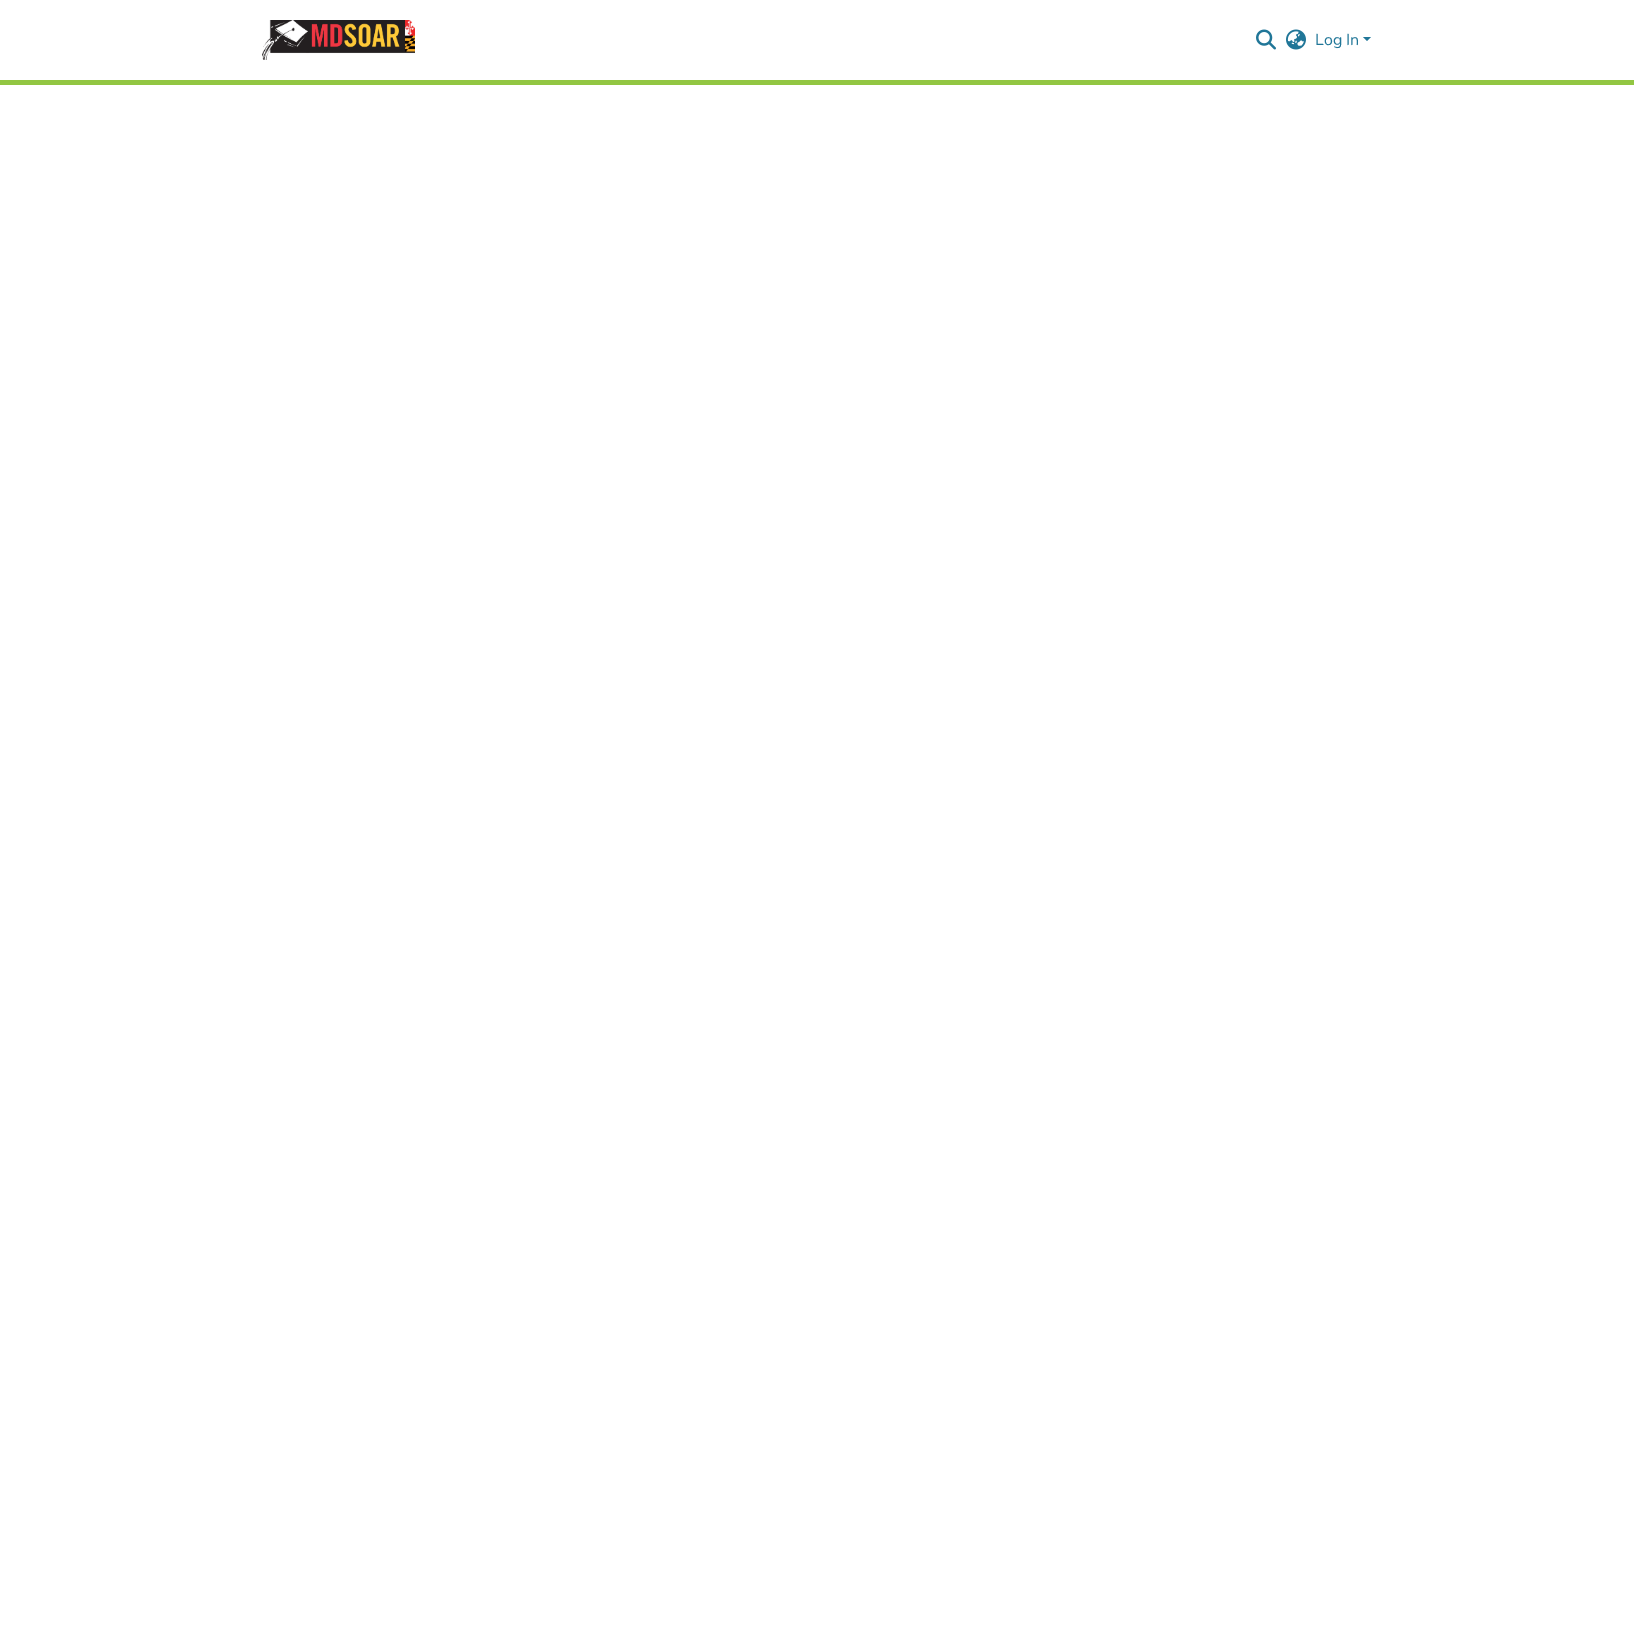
%!PS
<< /PageSize [1634 1629] >> setpagedevice
/mt/moveto load def
/li/lineto load def
/cp/closepath load def
/fl/fill load def
/co { dup -16 bitshift 255 div exch dup -8 bitshift 255 and 255 div exch 255 and 255 div setrgbcolor } def
/fn { [ exch dup neg 0 0 3 -1 roll 0 0 ] selectfont } def
/tx { co fn moveto show } def
/bx { co rectfill } def
/im { 5 dict begin { /h /w /y /x /name } { exch def } forall
  gsave x y translate w h scale
  w h 8 [w 0 0 h 0 0] name (r) file false 3 colorimage grestore end } def
0 1629 translate 1 -1 scale
4 setmiterlimit
0 0 1634 1629 16#FFFFFF bx
0 80 1634 5 16#92C642 bx
(media/1.raw) 262 20 153 40 im
(media/2.raw) 1256 29 20 21 im
(media/3.raw) 1286 29 20 21 im
16#207698 co
1363 37 mt 1371 37 li 1367 41 li cp fl
(Log In) 1315 45 /Nunito-Regular 16 16#207698 tx
showpage
